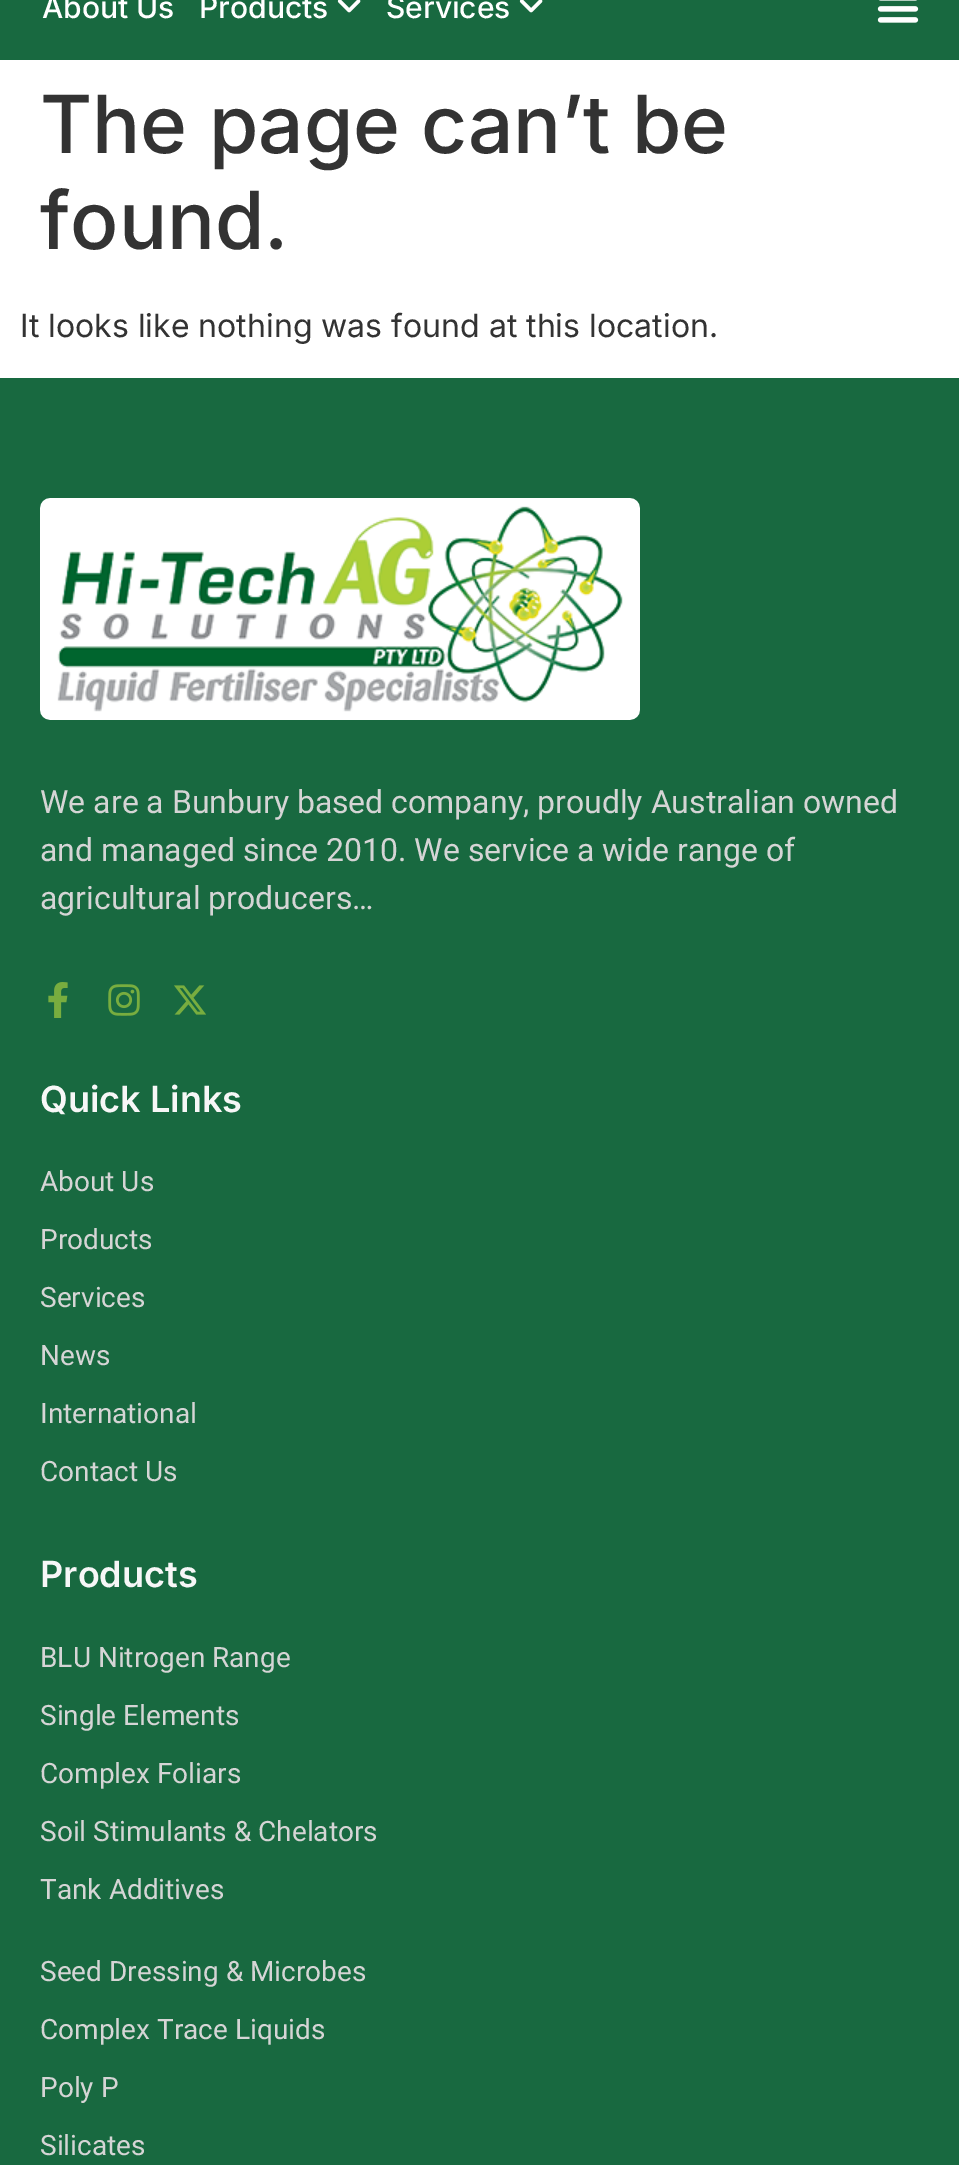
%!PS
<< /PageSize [959 2165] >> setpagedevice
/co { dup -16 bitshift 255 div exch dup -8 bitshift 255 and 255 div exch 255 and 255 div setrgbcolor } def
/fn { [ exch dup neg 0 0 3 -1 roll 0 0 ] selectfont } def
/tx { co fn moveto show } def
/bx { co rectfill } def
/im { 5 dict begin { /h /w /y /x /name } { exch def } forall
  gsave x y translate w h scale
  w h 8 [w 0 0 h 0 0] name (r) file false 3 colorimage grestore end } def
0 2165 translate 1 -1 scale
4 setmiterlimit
0 0 959 2165 16#FFFFFF bx
0 0 959 60 16#186940 bx
(media/1.raw) 337 0 24 13 im
(media/1.raw) 519 0 24 13 im
(media/2.raw) 877 0 42 23 im
0 378 959 1787 16#186940 bx
(media/3.raw) 40 498 600 222 im
(media/4.raw) 48 982 20 36 im
(media/5.raw) 108 984 32 32 im
(media/6.raw) 174 985 32 30 im
(About Us) 42 18 /Inter-Medium 30 16#FFFFFF tx
(Products) 199 18 /Inter-Medium 30 16#FFFFFF tx
(Services) 386 18 /Inter-Medium 30 16#FFFFFF tx
(The page can’t be) 40 153 /Inter-Medium 80 16#333333 tx
(found.) 40 249 /Inter-Medium 80 16#333333 tx
(It looks like nothing was found at this location.) 20 337 /Inter-Regular 32 16#333333 tx
(We are a Bunbury based company, proudly Australian owned) 40 813 /Roboto-Regular 32 16#D5D5D5 tx
(and managed since 2010. We service a wide range of) 40 861 /Roboto-Regular 32 16#D5D5D5 tx
(agricultural producers…) 40 909 /Roboto-Regular 32 16#D5D5D5 tx
(Quick Links) 40 1112 /Inter-SemiBold 36 16#F7F7F7 tx
(About Us) 40 1191 /Roboto-Regular 28 16#D5D5D5 tx
(Products) 40 1249 /Roboto-Regular 28 16#D5D5D5 tx
(Services) 40 1307 /Roboto-Regular 28 16#D5D5D5 tx
(News) 40 1365 /Roboto-Regular 28 16#D5D5D5 tx
(International) 40 1423 /Roboto-Regular 28 16#D5D5D5 tx
(Contact Us) 40 1481 /Roboto-Regular 28 16#D5D5D5 tx
(Products) 40 1587 /Inter-SemiBold 36 16#F7F7F7 tx
(BLU Nitrogen Range) 40 1667 /Roboto-Regular 28 16#D5D5D5 tx
(Single Elements) 40 1725 /Roboto-Regular 28 16#D5D5D5 tx
(Complex Foliars) 40 1783 /Roboto-Regular 28 16#D5D5D5 tx
(Soil Stimulants & Chelators) 40 1841 /Roboto-Regular 28 16#D5D5D5 tx
(Tank Additives) 40 1899 /Roboto-Regular 28 16#D5D5D5 tx
(Seed Dressing & Microbes) 40 1981 /Roboto-Regular 28 16#D5D5D5 tx
(Complex Trace Liquids) 40 2039 /Roboto-Regular 28 16#D5D5D5 tx
(Poly P) 40 2097 /Roboto-Regular 28 16#D5D5D5 tx
(Silicates) 40 2155 /Roboto-Regular 28 16#D5D5D5 tx
showpage
